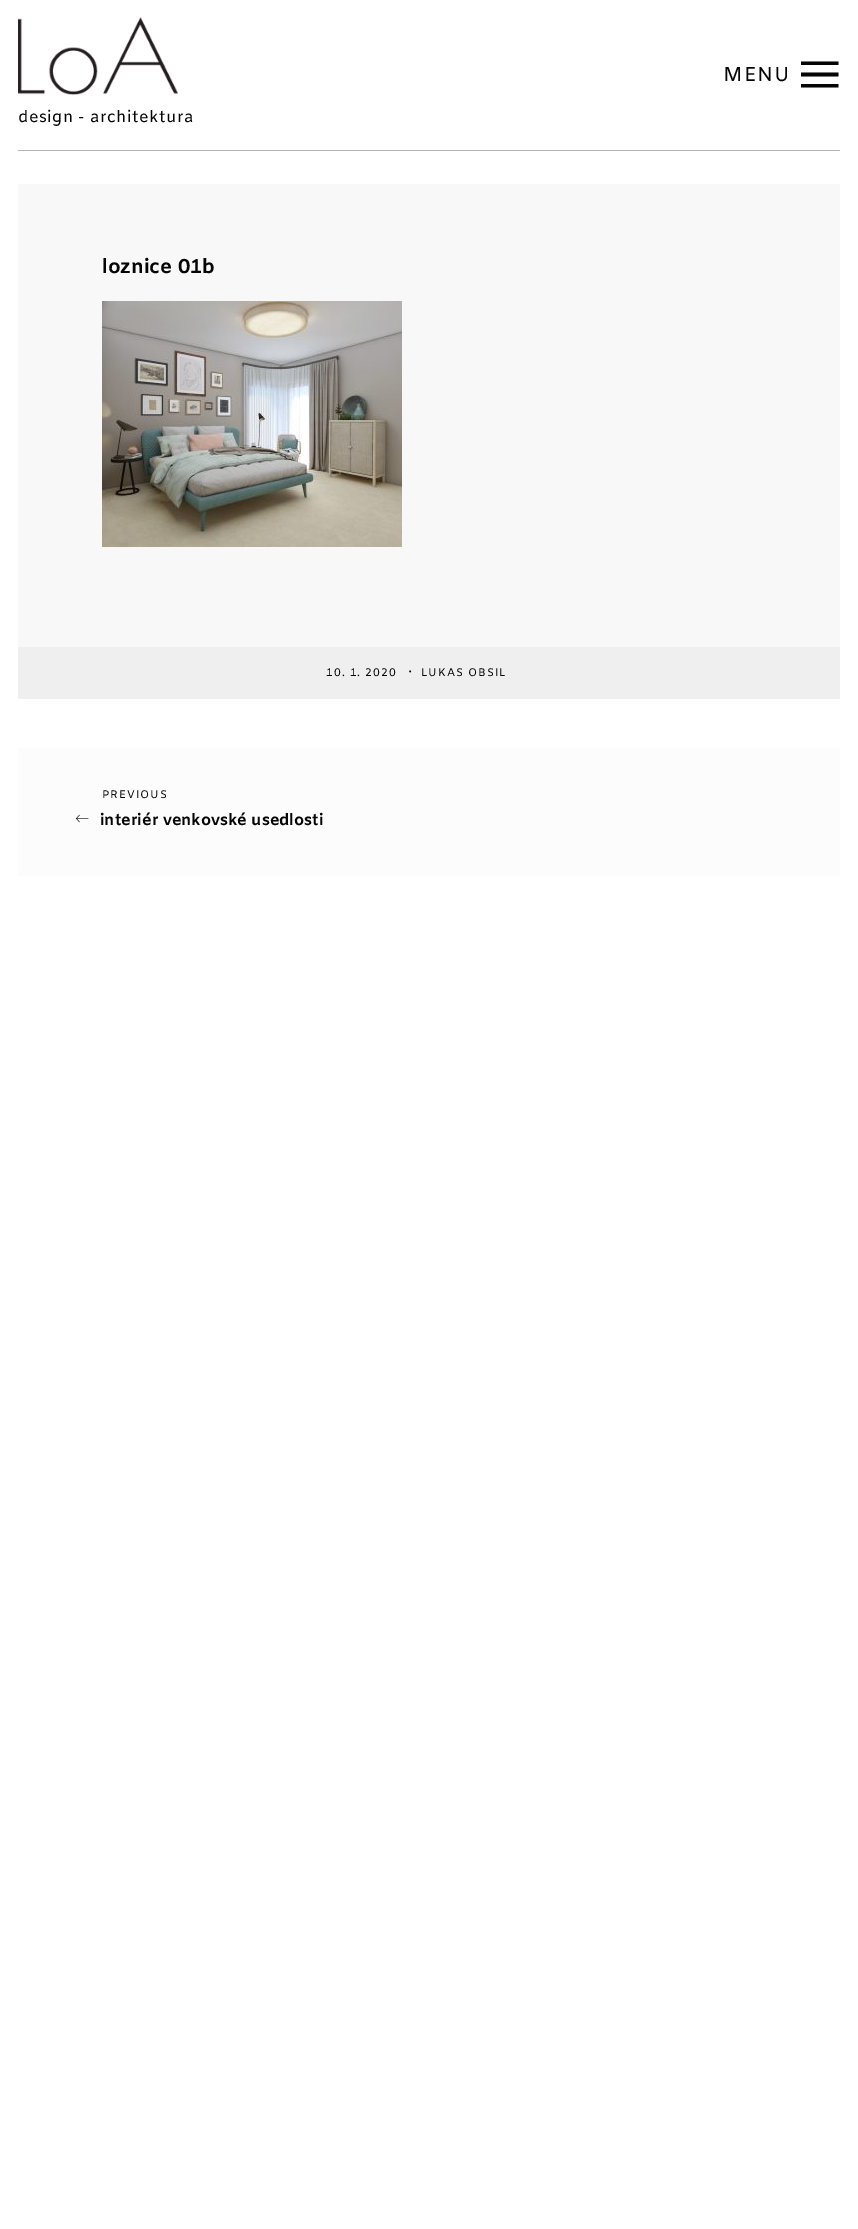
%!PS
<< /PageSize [858 2229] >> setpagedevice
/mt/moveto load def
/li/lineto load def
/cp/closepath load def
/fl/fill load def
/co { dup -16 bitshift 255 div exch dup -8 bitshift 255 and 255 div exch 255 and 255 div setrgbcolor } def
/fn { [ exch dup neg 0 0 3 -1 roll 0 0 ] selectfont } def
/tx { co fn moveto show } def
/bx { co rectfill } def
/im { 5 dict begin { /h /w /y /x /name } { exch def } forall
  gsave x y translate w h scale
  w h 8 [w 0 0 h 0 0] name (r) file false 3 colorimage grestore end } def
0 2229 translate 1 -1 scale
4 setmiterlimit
0 0 858 2229 16#FFFFFF bx
18 150 822 1 16#B5B5B5 bx
16#050505 co
801 76.5 mt 801 72.5 li 838.5 72.5 li 838.5 76.5 li cp 801 65 mt 801 61.5 li 838.5 61.5 li 838.5 65 li cp 801 87.5 mt 801 84 li 838.5 84 li 838.5 87.5 li cp fl
(media/1.raw) 18 17 160 78 im
18 184 822 463 16#F8F8F8 bx
(media/2.raw) 102 301 300 246 im
18 647 822 52 16#EFEFEF bx
18 748 822 128 16#FCFCFC bx
(media/3.raw) 76 814 13 9 im
/Amiko-Regular 20 fn
16#050505 co
723 81 mt 1 0 (MENU) ashow
/Amiko-Regular 16 fn
18 122 mt .5 0 (design - architektura) ashow
(loznice 01b) 102 273 /Amiko-Bold 20 16#050505 tx
/Amiko-Regular 11 fn
326 676 mt 1 0 (10. 1. 2020) ashow
/LiberationSerif-Regular 17 fn
408 677 mt 1 0 (∙) ashow
/Amiko-Regular 11 fn
421 676 mt 1 0 (LUKAS OBSIL) ashow
102 798 mt 1 0 (PREVIOUS) ashow
(interiér venkovské usedlosti) 100 825 /Amiko-Bold 16 16#050505 tx
showpage
